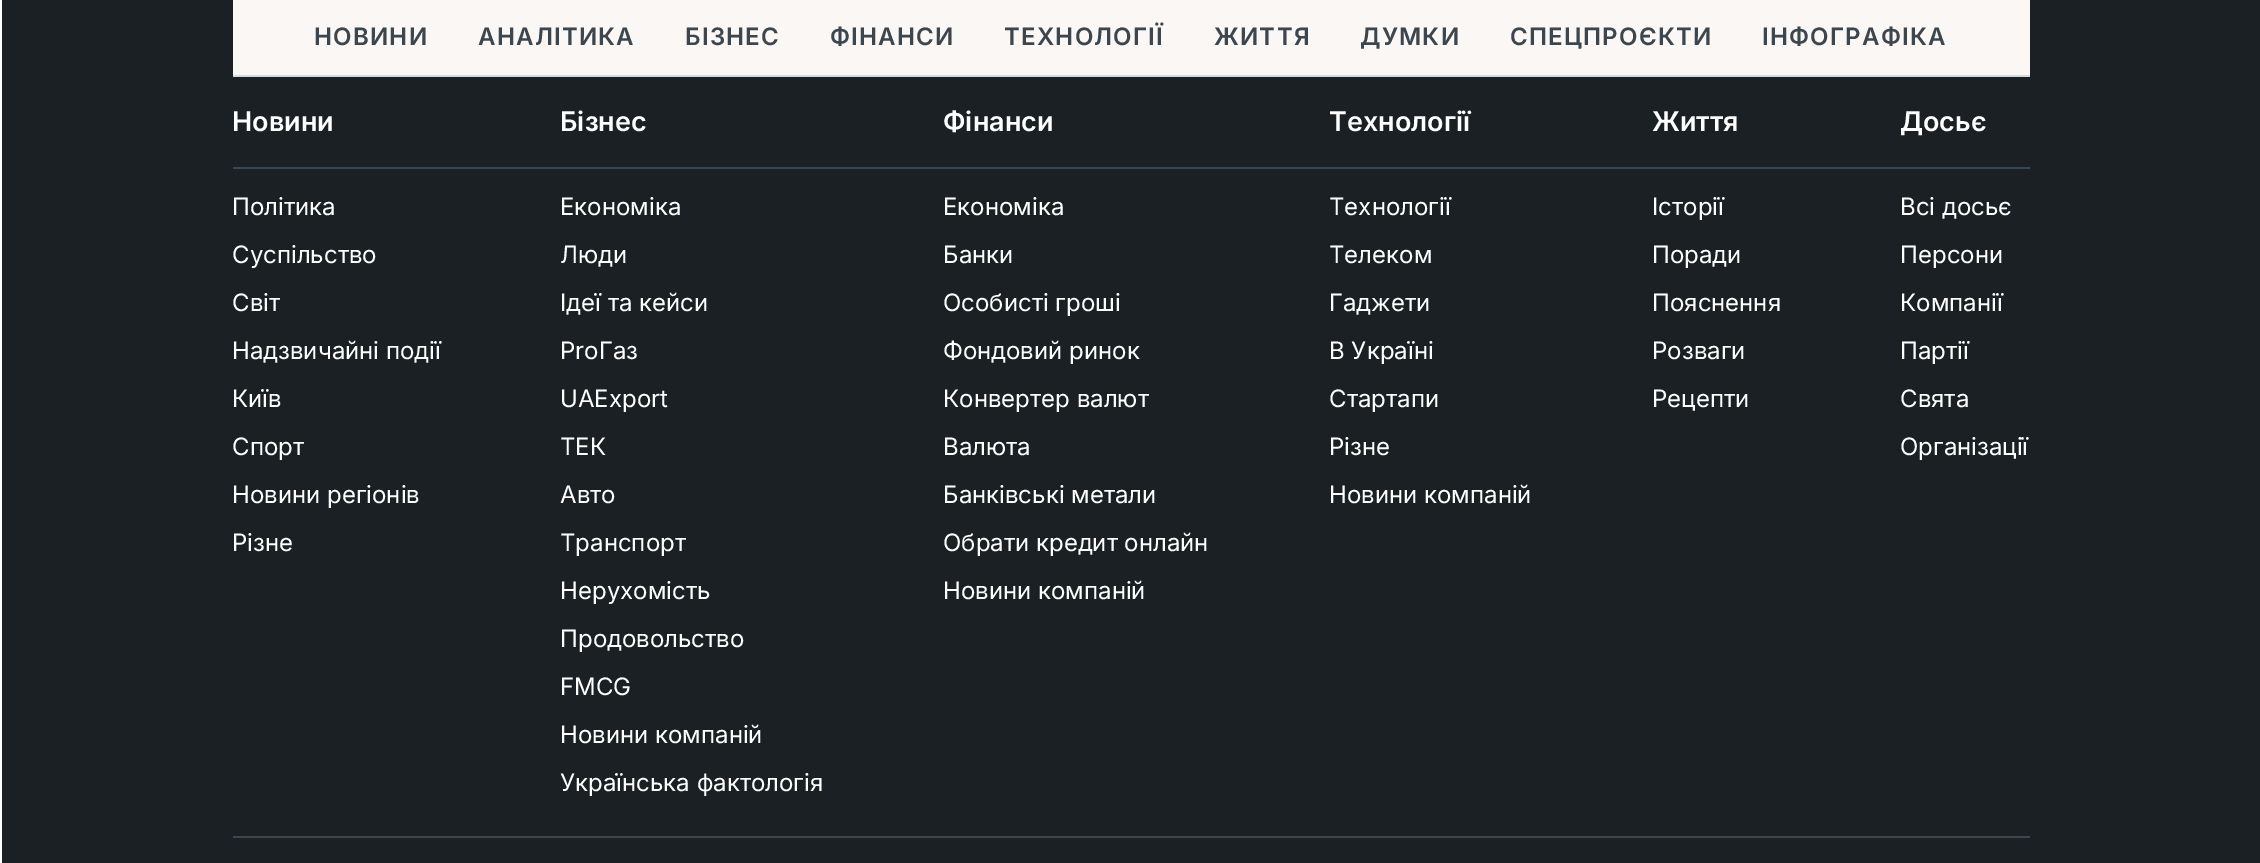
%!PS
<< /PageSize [2260 863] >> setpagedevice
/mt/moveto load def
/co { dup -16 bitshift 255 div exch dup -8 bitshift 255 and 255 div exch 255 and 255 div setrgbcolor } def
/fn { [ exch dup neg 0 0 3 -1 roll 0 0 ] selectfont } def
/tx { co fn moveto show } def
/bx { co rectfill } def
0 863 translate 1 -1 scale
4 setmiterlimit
0 0 2260 863 16#FFFFFF bx
2 0 2258 863 16#1A2024 bx
233 0 1797 75 16#FAF7F4 bx
233 75 1797 2 16#D5DADD bx
233 167 1797 2 16#3C464E bx
233 836 1797 2 16#3C464E bx
/Inter-SemiBold 24 fn
314 45 mt 1.25 0 (НОВИНИ) ashow
478 45 mt 1.25 0 (АНАЛІТИКА) ashow
685 45 mt 1.25 0 (БІЗНЕС) ashow
830 45 mt 1.25 0 (ФІНАНСИ) ashow
1004 45 mt 1.25 0 (ТЕХНОЛОГІЇ) ashow
1214 45 mt 1.25 0 (ЖИТТЯ) ashow
1360 45 mt 1.25 0 (ДУМКИ) ashow
1510 45 mt 1.25 0 (СПЕЦПРОЄКТИ) ashow
1762 45 mt 1.25 0 (ІНФОГРАФІКА) ashow
(Новини) 232 131 /Inter-SemiBold 27 16#FFFFFF tx
(Політика) 232 215 /Inter-Regular 24 16#FFFFFF tx
(Суспільство) 232 263 /Inter-Regular 24 16#FFFFFF tx
(Світ) 232 311 /Inter-Regular 24 16#FFFFFF tx
(Надзвичайні події) 232 359 /Inter-Regular 24 16#FFFFFF tx
(Київ) 232 407 /Inter-Regular 24 16#FFFFFF tx
(Спорт) 232 455 /Inter-Regular 24 16#FFFFFF tx
(Новини регіонів) 232 503 /Inter-Regular 24 16#FFFFFF tx
(Різне) 232 551 /Inter-Regular 24 16#FFFFFF tx
(Бізнес) 560 131 /Inter-SemiBold 27 16#FFFFFF tx
(Економіка) 560 215 /Inter-Regular 24 16#FFFFFF tx
(Люди) 560 263 /Inter-Regular 24 16#FFFFFF tx
(Ідеї та кейси) 560 311 /Inter-Regular 24 16#FFFFFF tx
(ProГаз) 560 359 /Inter-Regular 24 16#FFFFFF tx
(UAExport) 560 407 /Inter-Regular 24 16#FFFFFF tx
(ТЕК) 560 455 /Inter-Regular 24 16#FFFFFF tx
(Авто) 560 503 /Inter-Regular 24 16#FFFFFF tx
(Транспорт) 560 551 /Inter-Regular 24 16#FFFFFF tx
(Нерухомість) 560 599 /Inter-Regular 24 16#FFFFFF tx
(Продовольство) 560 647 /Inter-Regular 24 16#FFFFFF tx
(FMCG) 560 695 /Inter-Regular 24 16#FFFFFF tx
(Новини компаній) 560 743 /Inter-Regular 24 16#FFFFFF tx
(Українська фактологія) 560 791 /Inter-Regular 24 16#FFFFFF tx
(Фінанси) 943 131 /Inter-SemiBold 27 16#FFFFFF tx
(Економіка) 943 215 /Inter-Regular 24 16#FFFFFF tx
(Банки) 943 263 /Inter-Regular 24 16#FFFFFF tx
(Особисті гроші) 943 311 /Inter-Regular 24 16#FFFFFF tx
(Фондовий ринок) 943 359 /Inter-Regular 24 16#FFFFFF tx
(Конвертер валют) 943 407 /Inter-Regular 24 16#FFFFFF tx
(Валюта) 943 455 /Inter-Regular 24 16#FFFFFF tx
(Банківські метали) 943 503 /Inter-Regular 24 16#FFFFFF tx
(Обрати кредит онлайн) 943 551 /Inter-Regular 24 16#FFFFFF tx
(Новини компаній) 943 599 /Inter-Regular 24 16#FFFFFF tx
(Технології) 1329 131 /Inter-SemiBold 27 16#FFFFFF tx
(Технології) 1329 215 /Inter-Regular 24 16#FFFFFF tx
(Телеком) 1329 263 /Inter-Regular 24 16#FFFFFF tx
(Гаджети) 1329 311 /Inter-Regular 24 16#FFFFFF tx
(В Україні) 1329 359 /Inter-Regular 24 16#FFFFFF tx
(Стартапи) 1329 407 /Inter-Regular 24 16#FFFFFF tx
(Різне) 1329 455 /Inter-Regular 24 16#FFFFFF tx
(Новини компаній) 1329 503 /Inter-Regular 24 16#FFFFFF tx
(Життя) 1652 131 /Inter-SemiBold 27 16#FFFFFF tx
(Історії) 1652 215 /Inter-Regular 24 16#FFFFFF tx
(Поради) 1652 263 /Inter-Regular 24 16#FFFFFF tx
(Пояснення) 1652 311 /Inter-Regular 24 16#FFFFFF tx
(Розваги) 1652 359 /Inter-Regular 24 16#FFFFFF tx
(Рецепти) 1652 407 /Inter-Regular 24 16#FFFFFF tx
(Досьє) 1900 131 /Inter-SemiBold 27 16#FFFFFF tx
(Всі досьє) 1900 215 /Inter-Regular 24 16#FFFFFF tx
(Персони) 1900 263 /Inter-Regular 24 16#FFFFFF tx
(Компанії) 1900 311 /Inter-Regular 24 16#FFFFFF tx
(Партії) 1900 359 /Inter-Regular 24 16#FFFFFF tx
(Свята) 1900 407 /Inter-Regular 24 16#FFFFFF tx
(Організації) 1900 455 /Inter-Regular 24 16#FFFFFF tx
showpage
